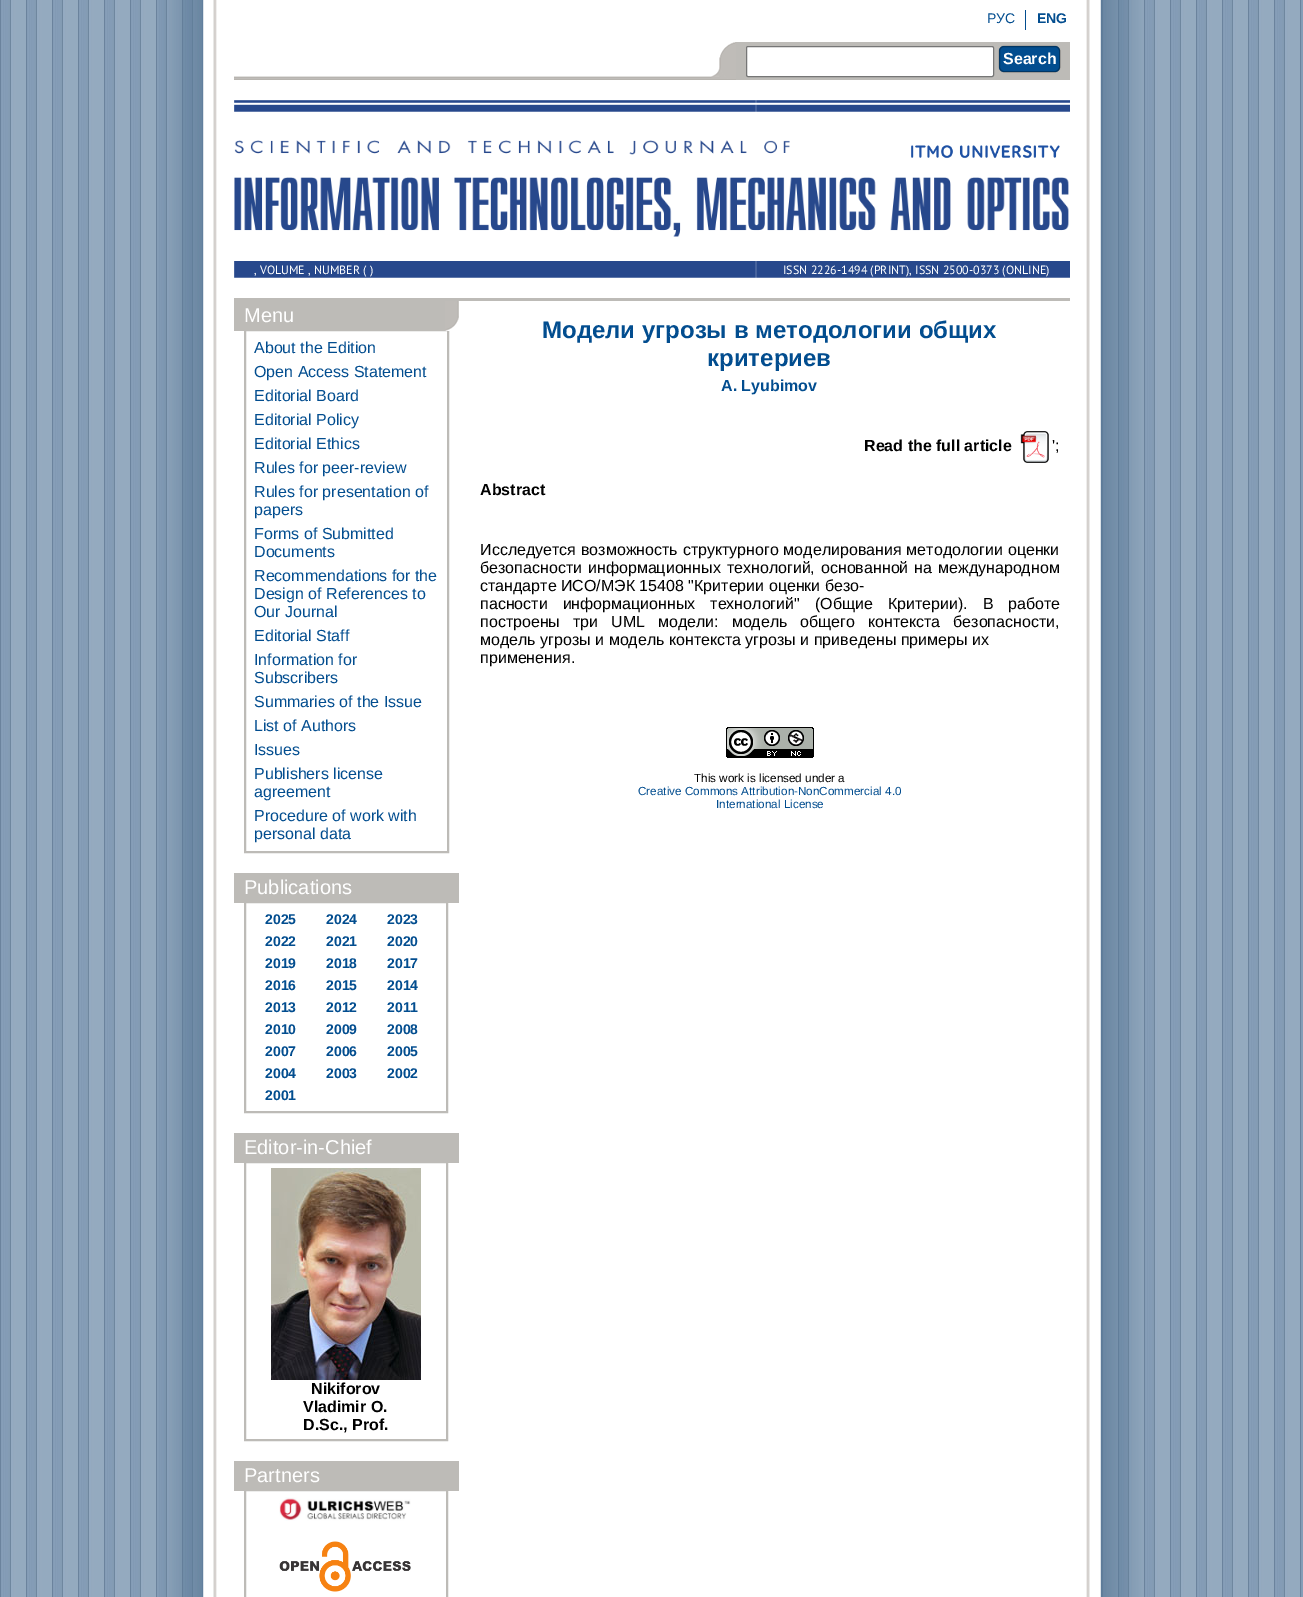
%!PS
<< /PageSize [1303 1597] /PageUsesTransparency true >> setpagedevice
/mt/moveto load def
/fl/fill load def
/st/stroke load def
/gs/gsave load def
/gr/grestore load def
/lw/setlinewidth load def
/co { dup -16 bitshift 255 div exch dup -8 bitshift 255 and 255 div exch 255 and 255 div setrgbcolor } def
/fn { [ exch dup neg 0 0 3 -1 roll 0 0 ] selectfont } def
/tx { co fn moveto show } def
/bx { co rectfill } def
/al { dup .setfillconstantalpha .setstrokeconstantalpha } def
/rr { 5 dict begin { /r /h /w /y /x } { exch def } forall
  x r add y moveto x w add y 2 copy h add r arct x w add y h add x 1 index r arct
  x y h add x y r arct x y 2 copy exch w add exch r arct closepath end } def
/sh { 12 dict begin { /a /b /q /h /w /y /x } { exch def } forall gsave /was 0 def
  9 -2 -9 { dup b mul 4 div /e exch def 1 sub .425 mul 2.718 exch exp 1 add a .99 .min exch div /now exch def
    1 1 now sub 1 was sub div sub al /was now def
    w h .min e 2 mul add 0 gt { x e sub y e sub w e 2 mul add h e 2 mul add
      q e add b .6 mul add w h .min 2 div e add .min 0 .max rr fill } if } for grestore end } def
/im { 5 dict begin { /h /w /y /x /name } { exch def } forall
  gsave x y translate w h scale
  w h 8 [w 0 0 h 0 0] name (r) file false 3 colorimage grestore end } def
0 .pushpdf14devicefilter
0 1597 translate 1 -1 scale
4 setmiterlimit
0 0 1303 1597 16#FFFFFF bx
(media/1.raw) 0 0 1303 1597 im
(media/2.raw) 158 0 986 1597 im
1025 10 1 20 16#024D8F bx
736 42 334 38 16#BDBBB7 bx
(media/3.raw) 234 42 476 38 im
(media/4.raw) 710 42 26 38 im
16#FFFFFF co
746.5 46.5 247 30 1.5 rr gs fl gr
16#767676 co
st
16#000000 co
999 46 61 26 5 .5 .4 sh
16#024D8F co
999 46 61 26 5 rr fl
0.3 al
16#000000 co
999.5 46.5 60 25 4.5 rr st
1 al
(media/5.raw) 234 100 836 178 im
(media/6.raw) 234 140 835 97 im
(media/7.raw) 911 145 149 14 im
234 298 836 3 16#BDBBB7 bx
2 lw
245 330 203 522 rectstroke
234 301 211 30 16#BDBBB7 bx
(media/8.raw) 445 301 14 30 im
245 902 202 210 rectstroke
234 873 225 30 16#BDBBB7 bx
245 1162 202 278 rectstroke
234 1133 225 30 16#BDBBB7 bx
(media/9.raw) 271 1168 150 212 im
245 1490 202 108 rectstroke
234 1461 225 30 16#BDBBB7 bx
(media/10.raw) 279 1497 132 24 im
(media/11.raw) 279 1541 132 51 im
(media/12.raw) 1020 431 29 32 im
(media/13.raw) 726 727 88 31 im
(РУС) 987 23 /LiberationSans-Regular 14 16#024D8F tx
(ENG) 1037 23 /LiberationSans-Bold 14 16#024D8F tx
(Search) 1003 64 /LiberationSans-Bold 16 16#FFFFFF tx
(, VOLUME , NUMBER \( \)) 254 274 /PTSans-Regular 12 16#FFFFFF tx
(ISSN 2226-1494 \(PRINT\), ISSN 2500-0373 \(ONLINE\)) 783 274 /PTSans-Regular 12 16#FFFFFF tx
(Menu) 244 322 /LiberationSans-Regular 20 16#FFFFFF tx
(About the Edition) 254 353 /LiberationSans-Regular 16 16#024D8F tx
(Open Access Statement) 254 377 /LiberationSans-Regular 16 16#024D8F tx
(Editorial Board) 254 401 /LiberationSans-Regular 16 16#024D8F tx
(Editorial Policy) 254 425 /LiberationSans-Regular 16 16#024D8F tx
(Editorial Ethics) 254 449 /LiberationSans-Regular 16 16#024D8F tx
(Rules for peer-review) 254 473 /LiberationSans-Regular 16 16#024D8F tx
(Rules for presentation of) 254 497 /LiberationSans-Regular 16 16#024D8F tx
(papers) 254 515 /LiberationSans-Regular 16 16#024D8F tx
(Forms of Submitted) 254 539 /LiberationSans-Regular 16 16#024D8F tx
(Documents) 254 557 /LiberationSans-Regular 16 16#024D8F tx
(Recommendations for the) 254 581 /LiberationSans-Regular 16 16#024D8F tx
(Design of References to) 254 599 /LiberationSans-Regular 16 16#024D8F tx
(Our Journal) 254 617 /LiberationSans-Regular 16 16#024D8F tx
(Editorial Staff) 254 641 /LiberationSans-Regular 16 16#024D8F tx
(Information for) 254 665 /LiberationSans-Regular 16 16#024D8F tx
(Subscribers) 254 683 /LiberationSans-Regular 16 16#024D8F tx
(Summaries of the Issue) 254 707 /LiberationSans-Regular 16 16#024D8F tx
(List of Authors) 254 731 /LiberationSans-Regular 16 16#024D8F tx
(Issues) 254 755 /LiberationSans-Regular 16 16#024D8F tx
(Publishers license) 254 779 /LiberationSans-Regular 16 16#024D8F tx
(agreement) 254 797 /LiberationSans-Regular 16 16#024D8F tx
(Procedure of work with) 254 821 /LiberationSans-Regular 16 16#024D8F tx
(personal data) 254 839 /LiberationSans-Regular 16 16#024D8F tx
(Publications) 244 894 /LiberationSans-Regular 20 16#FFFFFF tx
(2025) 265 924 /LiberationSans-Bold 14 16#024D8F tx
(2024) 326 924 /LiberationSans-Bold 14 16#024D8F tx
(2023) 387 924 /LiberationSans-Bold 14 16#024D8F tx
(2022) 265 946 /LiberationSans-Bold 14 16#024D8F tx
(2021) 326 946 /LiberationSans-Bold 14 16#024D8F tx
(2020) 387 946 /LiberationSans-Bold 14 16#024D8F tx
(2019) 265 968 /LiberationSans-Bold 14 16#024D8F tx
(2018) 326 968 /LiberationSans-Bold 14 16#024D8F tx
(2017) 387 968 /LiberationSans-Bold 14 16#024D8F tx
(2016) 265 990 /LiberationSans-Bold 14 16#024D8F tx
(2015) 326 990 /LiberationSans-Bold 14 16#024D8F tx
(2014) 387 990 /LiberationSans-Bold 14 16#024D8F tx
(2013) 265 1012 /LiberationSans-Bold 14 16#024D8F tx
(2012) 326 1012 /LiberationSans-Bold 14 16#024D8F tx
(2011) 387 1012 /LiberationSans-Bold 14 16#024D8F tx
(2010) 265 1034 /LiberationSans-Bold 14 16#024D8F tx
(2009) 326 1034 /LiberationSans-Bold 14 16#024D8F tx
(2008) 387 1034 /LiberationSans-Bold 14 16#024D8F tx
(2007) 265 1056 /LiberationSans-Bold 14 16#024D8F tx
(2006) 326 1056 /LiberationSans-Bold 14 16#024D8F tx
(2005) 387 1056 /LiberationSans-Bold 14 16#024D8F tx
(2004) 265 1078 /LiberationSans-Bold 14 16#024D8F tx
(2003) 326 1078 /LiberationSans-Bold 14 16#024D8F tx
(2002) 387 1078 /LiberationSans-Bold 14 16#024D8F tx
(2001) 265 1100 /LiberationSans-Bold 14 16#024D8F tx
(Editor-in-Chief) 244 1154 /LiberationSans-Regular 20 16#FFFFFF tx
(Nikiforov) 311 1394 /LiberationSans-Bold 16 16#000000 tx
(Vladimir O.) 303 1412 /LiberationSans-Bold 16 16#000000 tx
(D.Sc., Prof.) 303 1430 /LiberationSans-Bold 16 16#000000 tx
(Partners) 244 1482 /LiberationSans-Regular 20 16#FFFFFF tx
(Модели угрозы в методологии общих) 542 338 /LiberationSans-Bold 24 16#024D8F tx
(критериев) 707 366 /LiberationSans-Bold 24 16#024D8F tx
(A. Lyubimov) 721 391 /LiberationSans-Bold 16 16#024D8F tx
(Read the full article) 864 451 /LiberationSans-Bold 16 16#000000 tx
(';) 1052 451 /LiberationSans-Regular 16 16#000000 tx
(Abstract) 480 495 /LiberationSans-Bold 16 16#000000 tx
/LiberationSans-Regular 16 fn
480 555 mt .5 0 32 (Исследуется возможность структурного моделирования методологии оценки) widthshow
480 573 mt 1.5 0 32 (безопасности информационных технологий, основанной на международном) widthshow
(стандарте ИСО/МЭК 15408 "Критерии оценки безо-) 480 591 /LiberationSans-Regular 16 16#000000 tx
480 609 mt 10.5 0 32 (пасности информационных технологий" \(Общие Критерии\). В работе) widthshow
480 627 mt 8.5 0 32 (построены три UML модели: модель общего контекста безопасности,) widthshow
(модель угрозы и модель контекста угрозы и приведены примеры их) 480 645 /LiberationSans-Regular 16 16#000000 tx
(применения.) 480 663 /LiberationSans-Regular 16 16#000000 tx
(This work is licensed under a) 694 782 /LiberationSans-Regular 11.7 16#000000 tx
(Creative Commons Attribution-NonCommercial 4.0) 638 795 /LiberationSans-Regular 11.7 16#024D8F tx
(International License) 716 808 /LiberationSans-Regular 11.7 16#024D8F tx
.poppdf14devicefilter showpage
